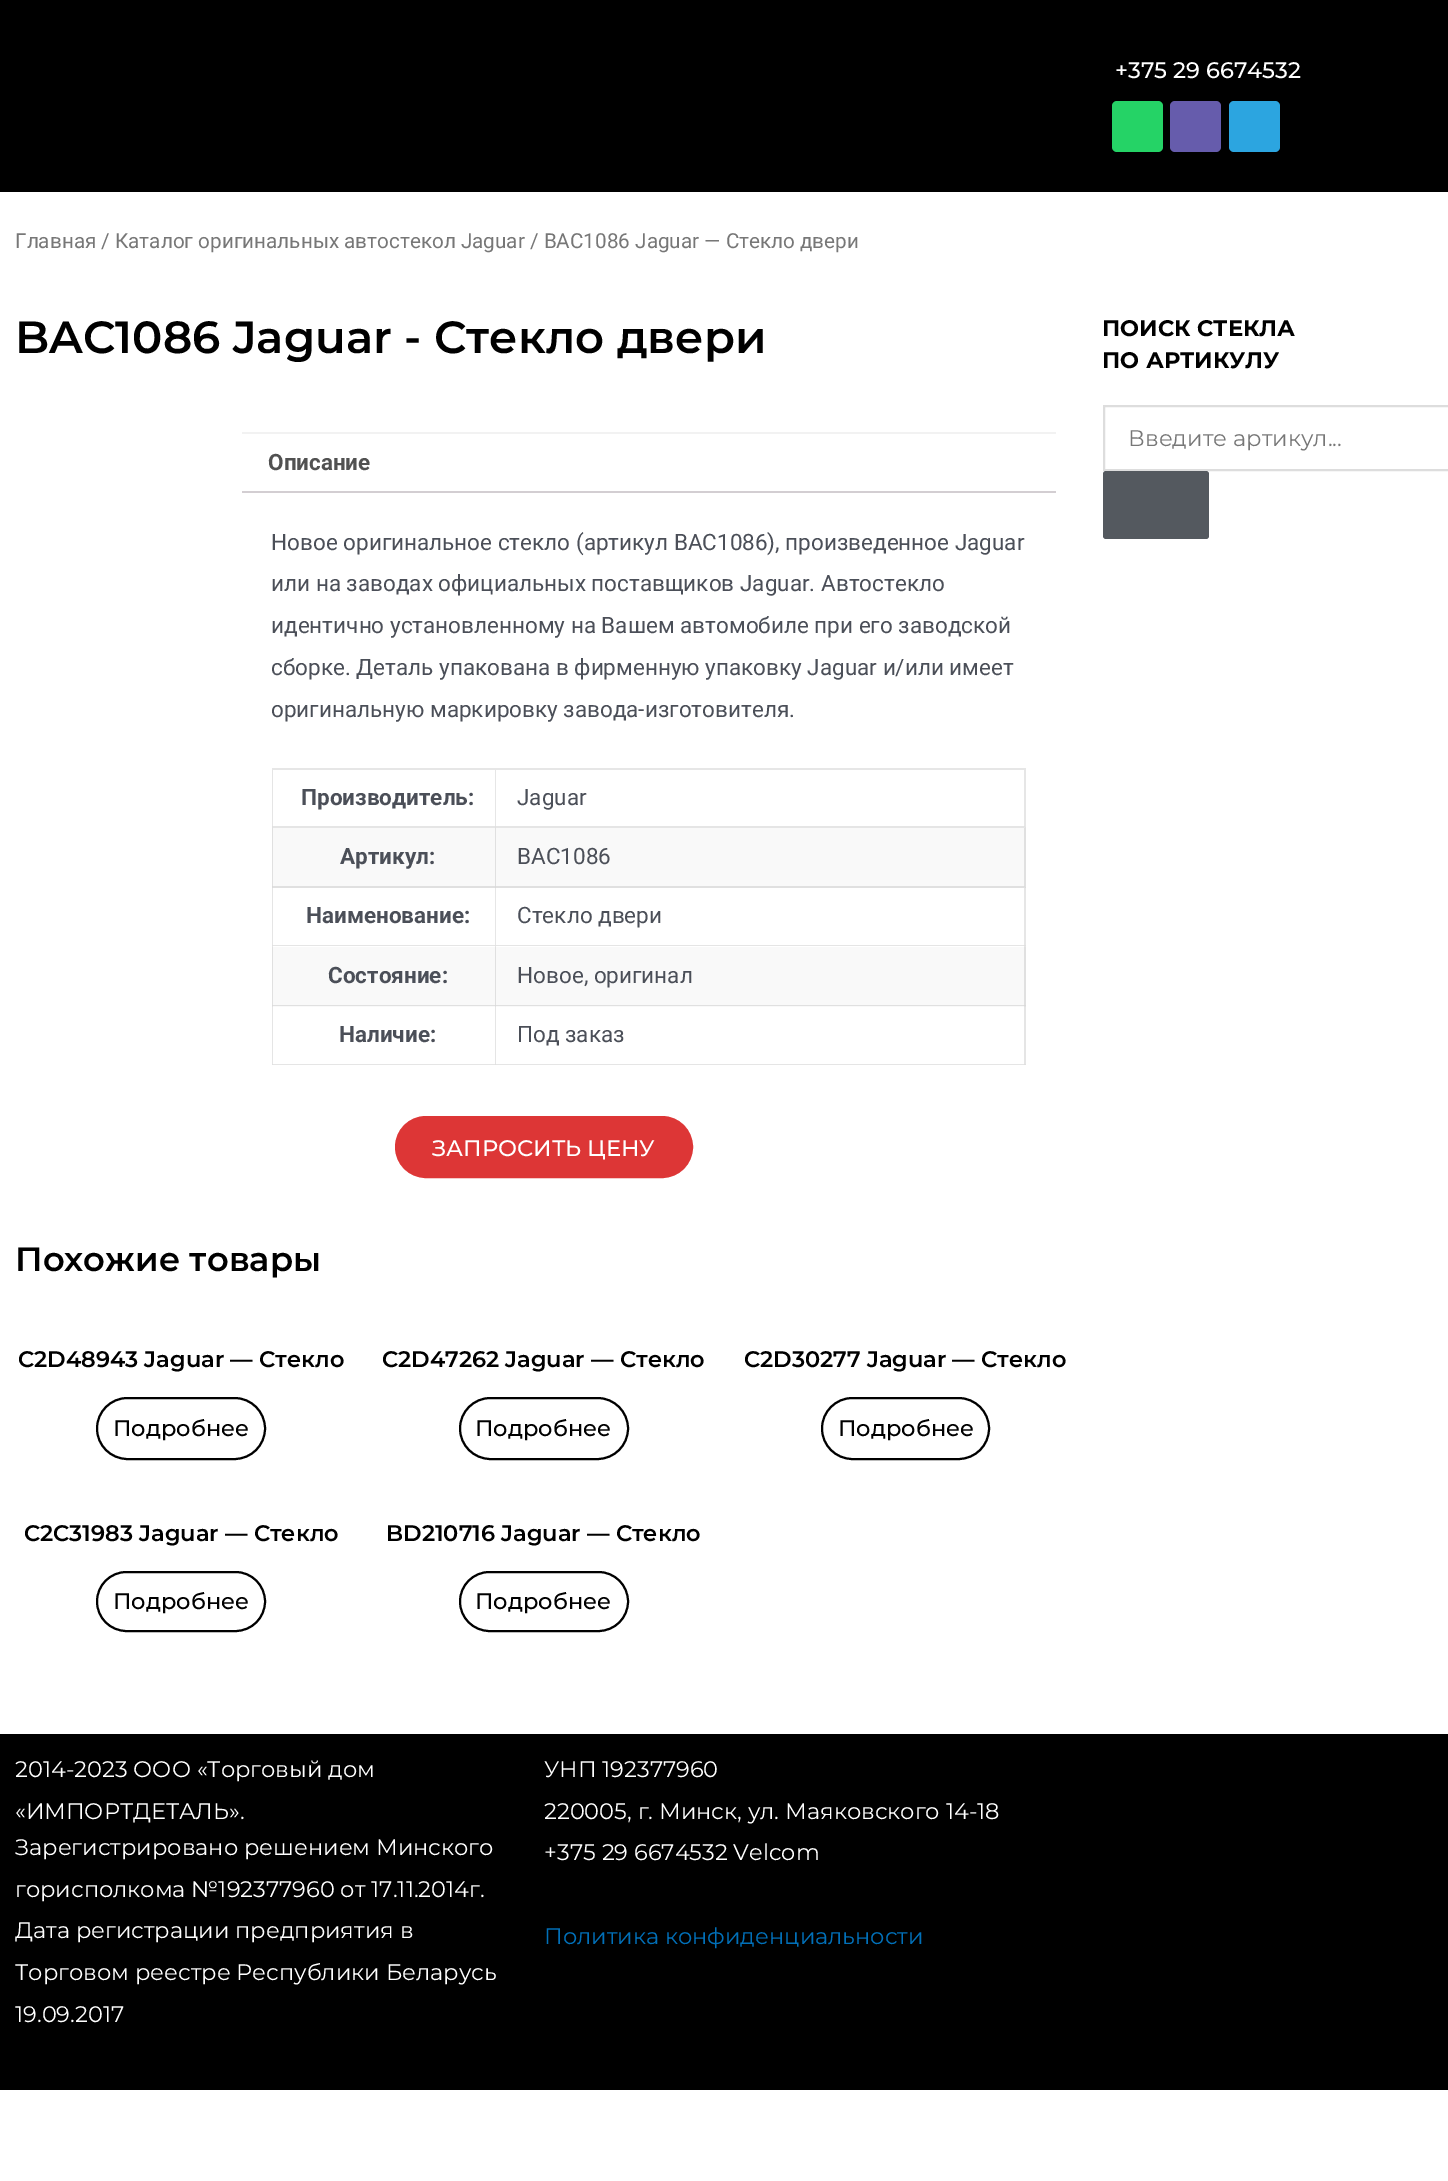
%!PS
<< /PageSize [1448 2181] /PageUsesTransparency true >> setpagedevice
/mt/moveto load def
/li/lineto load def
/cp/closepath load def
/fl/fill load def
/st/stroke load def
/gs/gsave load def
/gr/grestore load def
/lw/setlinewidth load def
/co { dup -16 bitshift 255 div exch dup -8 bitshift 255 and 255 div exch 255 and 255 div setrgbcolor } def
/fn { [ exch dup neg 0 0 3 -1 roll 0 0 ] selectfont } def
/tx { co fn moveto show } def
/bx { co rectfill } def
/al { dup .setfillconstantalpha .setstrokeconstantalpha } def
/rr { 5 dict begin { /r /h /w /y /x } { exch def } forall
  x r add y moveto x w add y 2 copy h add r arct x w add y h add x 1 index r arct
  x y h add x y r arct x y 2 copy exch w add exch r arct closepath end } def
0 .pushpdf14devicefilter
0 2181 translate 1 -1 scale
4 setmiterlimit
0 0 1448 2181 16#FFFFFF bx
0 0 1448 192 16#000000 bx
16#25D366 co
1112 101 51 51 5 rr fl
16#665CAC co
1170 101 51 51 5 rr fl
16#2CA5E0 co
1229 101 51 51 5 rr fl
242 432 814 2 16#F2F2F2 bx
242 491 814 2 16#D3CED2 bx
272 768 754 2 16#E6E6E6 bx
496 770 mt 496 828 li 495 826 li 495 770 li cp fl
0.1 al
16#000000 co
496 828 mt 272 828 li 273 826 li 495 826 li cp fl
272 828 mt 272 770 li 273 770 li 273 826 li cp fl
1 al
16#E6E6E6 co
1026 770 mt 1026 828 li 1024 826 li 1024 770 li cp fl
0.1 al
16#000000 co
1026 828 mt 496 828 li 496 826 li 1024 826 li cp fl
1 al
272 828 754 60 16#F9F9F9 bx
16#E0E0E0 co
496 828 mt 496 888 li 495 886 li 495 828 li cp fl
0.1 al
16#000000 co
496 888 mt 272 888 li 273 886 li 495 886 li cp fl
272 888 mt 272 828 li 273 828 li 273 886 li cp fl
1 al
16#E0E0E0 co
1026 828 mt 1026 888 li 1024 886 li 1024 828 li cp fl
0.1 al
16#000000 co
1026 888 mt 496 888 li 496 886 li 1024 886 li cp fl
1 al
16#E6E6E6 co
496 888 mt 496 946 li 495 945 li 495 888 li cp fl
0.1 al
16#000000 co
496 946 mt 272 946 li 273 945 li 495 945 li cp fl
272 946 mt 272 888 li 273 888 li 273 945 li cp fl
1 al
16#E6E6E6 co
1026 888 mt 1026 946 li 1024 945 li 1024 888 li cp fl
0.1 al
16#000000 co
1026 946 mt 496 946 li 496 945 li 1024 945 li cp fl
1 al
272 947 754 60 16#F9F9F9 bx
0.1 al
16#000000 co
496 946 mt 496 1006 li 495 1005 li 495 946 li cp fl
496 1006 mt 272 1006 li 273 1005 li 495 1005 li cp fl
272 1006 mt 272 946 li 273 946 li 273 1005 li cp fl
1026 946 mt 1026 1006 li 1024 1005 li 1024 946 li cp fl
1026 1006 mt 496 1006 li 496 1005 li 1024 1005 li cp fl
496 1006 mt 496 1065 li 495 1064 li 495 1006 li cp fl
496 1065 mt 272 1065 li 273 1064 li 495 1064 li cp fl
272 1065 mt 272 1006 li 273 1006 li 273 1064 li cp fl
1026 1006 mt 1026 1065 li 1024 1064 li 1024 1006 li cp fl
1026 1065 mt 496 1065 li 496 1064 li 1024 1064 li cp fl
1 al
16#DD3636 co
396 1117 296 60 30 rr gs fl gr
2 lw
st
16#000000 co
97 1398 168 61 30.5 rr st
460 1398 168 61 30.5 rr st
822 1398 167 61 30.5 rr st
97 1572 168 59 29.5 rr st
460 1572 168 59 29.5 rr st
16#DDDDDD co
1104 406 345 64 rectstroke
16#54595F co
1103 471 106 68 3 rr fl
0 1734 1448 356 16#000000 bx
(+375 29 6674532) 1115 78 /Montserrat-Medium 22.5 16#FFFFFF tx
(Главная / Каталог оригинальных автостекол Jaguar / BAC1086 Jaguar — Стекло двери) 15 248 /Roboto-Regular 20.7 16#777777 tx
(BAC1086 Jaguar - Стекло двери) 15 353 /Montserrat-SemiBold 45 16#000000 tx
(Описание) 268 470 /Roboto-Bold 22.5 16#515151 tx
(Новое оригинальное стекло \(артикул BAC1086\), произведенное Jaguar) 271 550 /Roboto-Regular 22.5 16#4B4F58 tx
(или на заводах официальных поставщиков Jaguar. Автостекло) 271 591 /Roboto-Regular 22.5 16#4B4F58 tx
(идентично установленному на Вашем автомобиле при его заводской) 271 633 /Roboto-Regular 22.5 16#4B4F58 tx
(сборке. Деталь упакована в фирменную упаковку Jaguar и/или имеет) 271 675 /Roboto-Regular 22.5 16#4B4F58 tx
(оригинальную маркировку завода-изготовителя.) 271 717 /Roboto-Regular 22.5 16#4B4F58 tx
(Производитель:) 301 805 /Roboto-Bold 22.5 16#4B4F58 tx
(Jaguar) 517 805 /Roboto-Regular 22.5 16#4B4F58 tx
(Артикул:) 340 864 /Roboto-Bold 22.5 16#4B4F58 tx
(BAC1086) 517 864 /Roboto-Regular 22.5 16#4B4F58 tx
(Наименование:) 306 923 /Roboto-Bold 22.5 16#4B4F58 tx
(Стекло двери) 517 923 /Roboto-Regular 22.5 16#4B4F58 tx
(Состояние:) 328 983 /Roboto-Bold 22.5 16#4B4F58 tx
(Новое, оригинал) 517 983 /Roboto-Regular 22.5 16#4B4F58 tx
(Наличие:) 339 1042 /Roboto-Bold 22.5 16#4B4F58 tx
(Под заказ) 517 1042 /Roboto-Regular 22.5 16#4B4F58 tx
(ЗАПРОСИТЬ ЦЕНУ) 432 1156 /Montserrat-Medium 22.5 16#FFFFFF tx
(Похожие товары) 15 1271 /Montserrat-SemiBold 33.75 16#000000 tx
(C2D48943 Jaguar — Стекло) 18 1367 /Montserrat-SemiBold 22.5 16#000000 tx
(Подробнее) 113 1436 /Montserrat-Medium 22.5 16#000000 tx
(C2D47262 Jaguar — Стекло) 382 1367 /Montserrat-SemiBold 22.5 16#000000 tx
(Подробнее) 475 1436 /Montserrat-Medium 22.5 16#000000 tx
(C2D30277 Jaguar — Стекло) 744 1367 /Montserrat-SemiBold 22.5 16#000000 tx
(Подробнее) 838 1436 /Montserrat-Medium 22.5 16#000000 tx
(C2C31983 Jaguar — Стекло) 24 1541 /Montserrat-SemiBold 22.5 16#000000 tx
(Подробнее) 113 1609 /Montserrat-Medium 22.5 16#000000 tx
(BD210716 Jaguar — Стекло) 386 1541 /Montserrat-SemiBold 22.5 16#000000 tx
(Подробнее) 475 1609 /Montserrat-Medium 22.5 16#000000 tx
(ПОИСК СТЕКЛА) 1102 336 /Montserrat-Bold 22.5 16#000000 tx
(ПО АРТИКУЛУ) 1102 368 /Montserrat-Bold 22.5 16#000000 tx
(Введите артикул...) 1128 446 /Montserrat-Regular 22.5 16#777777 tx
(2014-2023 ООО «Торговый дом) 15 1777 /Montserrat-Regular 22.5 16#FFFFFF tx
(«ИМПОРТДЕТАЛЬ».) 15 1819 /Montserrat-Regular 22.5 16#FFFFFF tx
(Зарегистрировано решением Минского) 15 1855 /Montserrat-Regular 22.5 16#FFFFFF tx
(горисполкома №192377960 от 17.11.2014г.) 15 1897 /Montserrat-Regular 22.5 16#FFFFFF tx
(Дата регистрации предприятия в) 15 1938 /Montserrat-Regular 22.5 16#FFFFFF tx
(Торговом реестре Республики Беларусь) 15 1980 /Montserrat-Regular 22.5 16#FFFFFF tx
(19.09.2017) 15 2022 /Montserrat-Regular 22.5 16#FFFFFF tx
(УНП 192377960) 544 1777 /Montserrat-Regular 22.5 16#FFFFFF tx
(220005, г. Минск, ул. Маяковского 14-18) 544 1819 /Montserrat-Regular 22.5 16#FFFFFF tx
(+375 29 6674532 Velcom) 544 1860 /Montserrat-Regular 22.5 16#FFFFFF tx
(Политика конфиденциальности) 544 1944 /Montserrat-Regular 22.5 16#0170B9 tx
.poppdf14devicefilter showpage
